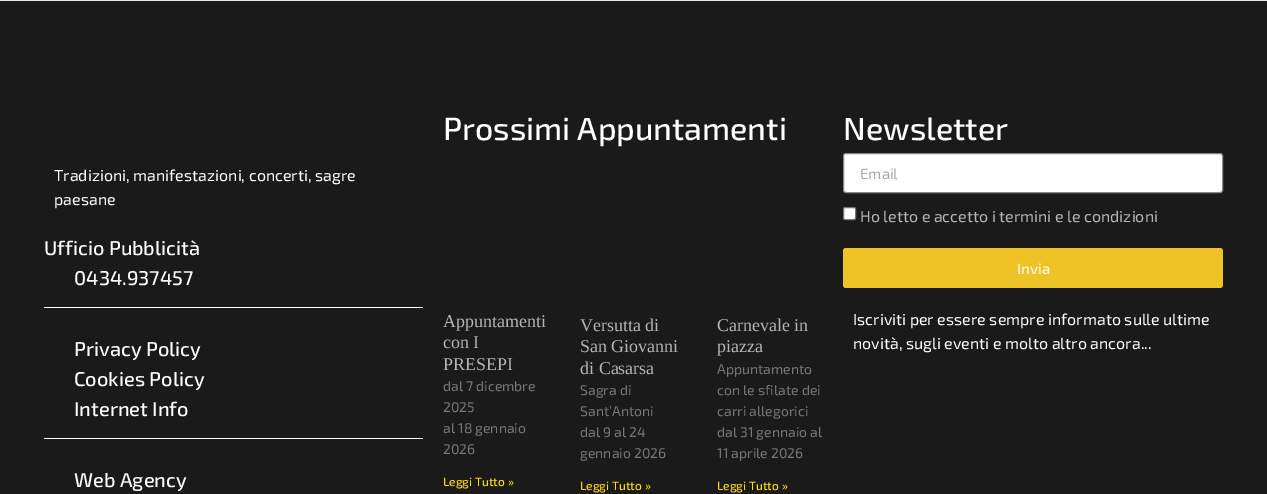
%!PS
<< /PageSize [1267 494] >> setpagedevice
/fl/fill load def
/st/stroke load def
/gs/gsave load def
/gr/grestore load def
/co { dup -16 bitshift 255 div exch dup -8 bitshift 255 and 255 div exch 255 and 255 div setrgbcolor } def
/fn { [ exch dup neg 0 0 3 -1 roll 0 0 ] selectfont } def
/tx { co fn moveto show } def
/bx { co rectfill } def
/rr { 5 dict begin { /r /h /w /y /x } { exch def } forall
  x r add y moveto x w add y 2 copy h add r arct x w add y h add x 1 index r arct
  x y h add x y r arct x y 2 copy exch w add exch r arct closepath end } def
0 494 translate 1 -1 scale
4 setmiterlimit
0 0 1267 494 16#EAEAEA bx
0 1 1267 493 16#1A1A1A bx
44 307 379 1 16#FFFFFF bx
44 438 379 1 16#FFFFFF bx
843.5 153.5 379 39 2.5 rr gs fl gr
16#818A91 co
st
16#FFFFFF co
843.5 207.5 12 12 1.5 rr gs fl gr
16#767676 co
st
16#EFC325 co
843 248 380 40 3 rr fl
(Tradizioni, manifestazioni, concerti, sagre) 54 181 /Exo2-Regular 16 16#FFFFFF tx
(paesane) 54 205 /Exo2-Regular 16 16#FFFFFF tx
(Ufficio Pubblicità) 44 255 /Exo2-Medium 20 16#FFFFFF tx
(0434.937457) 74 285 /Exo2-Medium 20 16#FFFFFF tx
(Privacy Policy) 74 356 /Exo2-Medium 20 16#FFFFFF tx
(Cookies Policy) 74 386 /Exo2-Medium 20 16#FFFFFF tx
(Internet Info) 74 416 /Exo2-Medium 20 16#FFFFFF tx
(Web Agency) 74 487 /Exo2-Medium 20 16#FFFFFF tx
(Prossimi Appuntamenti) 443 140 /Exo2-Medium 32 16#FFFFFF tx
(Appuntamenti) 443 327 /LiberationSerif-Regular 18 16#B7B4B4 tx
(con I) 443 348 /LiberationSerif-Regular 18 16#B7B4B4 tx
(PRESEPI) 443 370 /LiberationSerif-Regular 18 16#B7B4B4 tx
(dal 7 dicembre) 443 391 /Exo2-Regular 14 16#777777 tx
(2025) 443 412 /Exo2-Regular 14 16#777777 tx
(al 18 gennaio) 443 433 /Exo2-Regular 14 16#777777 tx
(2026) 443 454 /Exo2-Regular 14 16#777777 tx
(Leggi Tutto ») 443 486 /Exo2-Medium 12 16#FEDD02 tx
(Versutta di) 580 331 /LiberationSerif-Regular 18 16#B7B4B4 tx
(San Giovanni) 580 352 /LiberationSerif-Regular 18 16#B7B4B4 tx
(di Casarsa) 580 374 /LiberationSerif-Regular 18 16#B7B4B4 tx
(Sagra di) 580 395 /Exo2-Regular 14 16#777777 tx
(Sant’Antoni) 580 416 /Exo2-Regular 14 16#777777 tx
(dal 9 al 24) 580 437 /Exo2-Regular 14 16#777777 tx
(gennaio 2026) 580 458 /Exo2-Regular 14 16#777777 tx
(Leggi Tutto ») 580 490 /Exo2-Medium 12 16#FEDD02 tx
(Carnevale in) 717 331 /LiberationSerif-Regular 18 16#B7B4B4 tx
(piazza) 717 352 /LiberationSerif-Regular 18 16#B7B4B4 tx
(Appuntamento) 717 374 /Exo2-Regular 14 16#777777 tx
(con le sfilate dei) 717 395 /Exo2-Regular 14 16#777777 tx
(carri allegorici) 717 416 /Exo2-Regular 14 16#777777 tx
(dal 31 gennaio al) 717 437 /Exo2-Regular 14 16#777777 tx
(11 aprile 2026) 717 458 /Exo2-Regular 14 16#777777 tx
(Leggi Tutto ») 717 490 /Exo2-Medium 12 16#FEDD02 tx
(Newsletter) 843 140 /Exo2-Medium 32 16#FFFFFF tx
(Email) 860 179 /Exo2-Regular 15 16#A9A9A9 tx
(Ho letto e accetto i termini e le condizioni) 860 222 /Exo2-Regular 16 16#B7B4B4 tx
(Invia) 1017 274 /Exo2-Medium 15 16#FFFFFF tx
(Iscriviti per essere sempre informato sulle ultime) 853 325 /Exo2-Regular 16 16#FFFFFF tx
(novità, sugli eventi e molto altro ancora...) 853 349 /Exo2-Regular 16 16#FFFFFF tx
showpage
